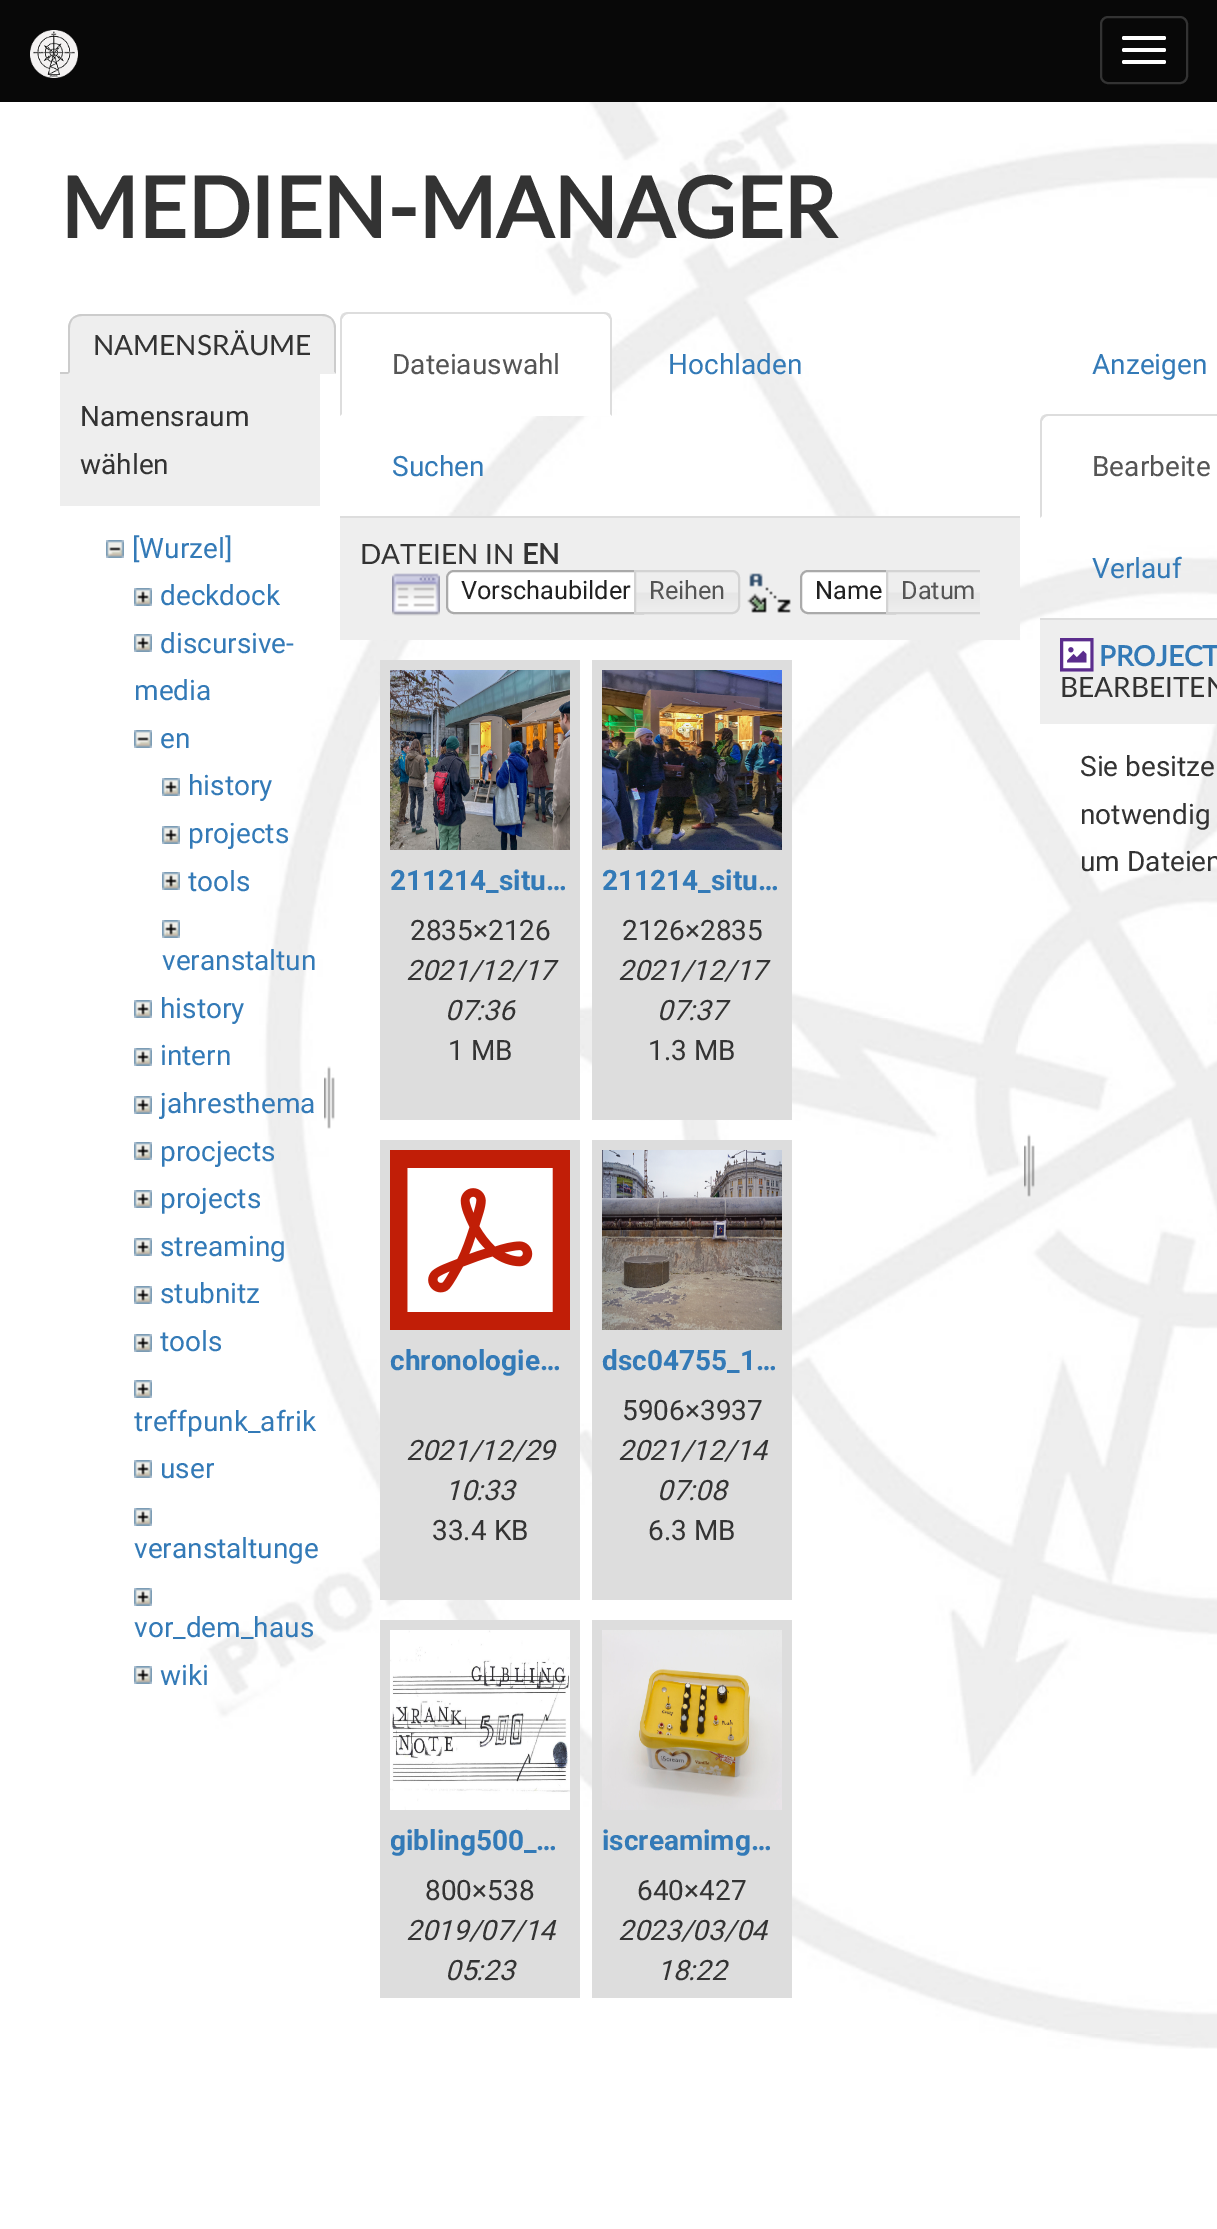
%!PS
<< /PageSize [1217 2229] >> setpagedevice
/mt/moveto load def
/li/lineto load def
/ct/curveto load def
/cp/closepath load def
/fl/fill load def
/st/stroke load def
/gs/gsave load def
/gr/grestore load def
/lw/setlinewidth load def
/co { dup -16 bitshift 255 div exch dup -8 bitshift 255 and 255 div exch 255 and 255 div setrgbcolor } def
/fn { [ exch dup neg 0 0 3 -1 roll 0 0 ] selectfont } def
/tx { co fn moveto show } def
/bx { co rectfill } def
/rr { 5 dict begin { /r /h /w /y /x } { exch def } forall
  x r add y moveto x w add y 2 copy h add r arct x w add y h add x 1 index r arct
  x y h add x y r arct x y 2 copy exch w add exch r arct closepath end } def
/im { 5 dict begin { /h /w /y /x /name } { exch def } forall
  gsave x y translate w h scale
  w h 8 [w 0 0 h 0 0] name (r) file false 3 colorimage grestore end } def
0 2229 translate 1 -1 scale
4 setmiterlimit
0 0 1217 2229 16#FFFFFF bx
(media/1.raw) 200 102 1017 1947 im
0 0 1217 102 16#080808 bx
(media/2.raw) 30 30 48 48 im
16#333333 co
2 lw
1101 17 86 66 7 rr st
16#FFFFFF co
1122 36 44 4 2 rr fl
1122 48 44 4 2 rr fl
1122 60 44 4 2 rr fl
16#EEEEEE co
82 314 mt 322 314 li 329.5 314 336 320.5 336 328 ct 336 374 li 68 374 li 68 328 li 68 320.5 74.5 314 82 314 ct cp fl
16#CCCCCC co
82 314 mt 78 314 74 316 72 318 ct 73 319 li 76 317 78 316 82 316 ct 322 316 li 326 316 328 317 331 319 ct 332 318 li 330 316 326 314 322 314 ct cp fl
336 374 mt 336 328 li 336 324 334 320 332 318 ct 331 319 li 333 322 334 324 334 328 ct 334 372 li cp fl
16#EEEEEE co
336 374 mt 334 372 li 70 372 li 68 374 li cp fl
16#CCCCCC co
68 374 mt 70 372 li 70 328 li 70 324 71 322 73 319 ct 72 318 li 70 320 68 324 68 328 ct cp fl
60 374 260 132 16#EEEEEE bx
60 372 8 2 16#CCCCCC bx
(media/3.raw) 106 540 18 18 im
(media/4.raw) 134 588 18 18 im
(media/4.raw) 134 634 18 18 im
(media/3.raw) 134 730 18 18 im
(media/4.raw) 162 778 18 18 im
(media/4.raw) 162 826 18 18 im
(media/4.raw) 162 872 18 18 im
(media/4.raw) 162 920 18 18 im
(media/4.raw) 134 1000 18 18 im
(media/4.raw) 134 1048 18 18 im
(media/4.raw) 134 1096 18 18 im
(media/4.raw) 134 1142 18 18 im
(media/4.raw) 134 1190 18 18 im
(media/4.raw) 134 1238 18 18 im
(media/4.raw) 134 1286 18 18 im
(media/4.raw) 134 1334 18 18 im
(media/4.raw) 134 1380 18 18 im
(media/4.raw) 134 1460 18 18 im
(media/4.raw) 134 1508 18 18 im
(media/4.raw) 134 1588 18 18 im
(media/4.raw) 134 1666 18 18 im
(media/5.raw) 324 1066 11 63 im
340 516 680 2 16#DDDDDD bx
16#FFFFFF co
348 312 mt 604 312 li 608.5 312 612 315.5 612 320 ct 612 416 li 340 416 li 340 320 li 340 315.5 343.5 312 348 312 ct cp fl
16#DDDDDD co
348 312 mt 346 312 344 313 342 314 ct 344 316 li 345 315 346 314 348 314 ct 604 314 li 606 314 607 315 608 316 ct 610 314 li 608 313 606 312 604 312 ct cp fl
612 416 mt 612 319 li 610 314 li 608 316 li 610 319 li 610 414 li cp fl
340 416 mt 342 414 li 342 319 li 344 316 li 342 314 li 341 316 340 318 340 320 ct cp fl
340 518 680 122 16#EEEEEE bx
(media/6.raw) 392 573 48 43 im
16#FFFFFF co
454 570 mt 644 570 li 644 614 li 454 614 li 449.5 614 446 610.5 446 606 ct 446 578 li 446 573.5 449.5 570 454 570 ct cp fl
(media/7.raw) 446 570 6 44 im
16#AAAAAA co
454 571 mt 643 571 li 643 613 li 454 613 li 450 613 447 610 447 606 ct 447 578 li 447 574 450 571 454 571 ct cp st
(media/8.raw) 636 570 104 44 im
16#D3D3D3 co
635 571 mt 732 571 li 736 571 739 574 739 578 ct 739 606 li 739 610 736 613 732 613 ct 635 613 li cp st
(media/9.raw) 747 573 44 40 im
16#FFFFFF co
808 570 mt 896 570 li 896 614 li 808 614 li 803.5 614 800 610.5 800 606 ct 800 578 li 800 573.5 803.5 570 808 570 ct cp fl
(media/7.raw) 800 570 6 44 im
16#AAAAAA co
808 571 mt 895 571 li 895 613 li 808 613 li 804 613 801 610 801 606 ct 801 578 li 801 574 804 571 808 571 ct cp st
(media/10.raw) 888 572 92 40 im
gs
376 570 604 54 rectclip
16#D3D3D3 co
887 571 mt 982 571 li 986 571 989 574 989 578 ct 989 606 li 989 610 986 613 982 613 ct 887 613 li cp st
gr
380 660 200 460 16#DDDDDD bx
(media/11.raw) 390 670 180 180 im
592 660 200 460 16#DDDDDD bx
(media/12.raw) 602 670 180 180 im
380 1140 200 460 16#DDDDDD bx
(media/13.raw) 390 1150 180 180 im
592 1140 200 460 16#DDDDDD bx
(media/14.raw) 602 1150 180 180 im
380 1620 200 378 16#DDDDDD bx
(media/15.raw) 390 1630 180 180 im
592 1620 200 378 16#DDDDDD bx
(media/16.raw) 602 1630 180 180 im
(media/17.raw) 1024 1134 11 63 im
1040 618 177 2 16#DDDDDD bx
1048 414 mt 1046 414 1044 415 1042 416 ct 1044 418 li 1045 417 1046 416 1048 416 ct 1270 416 li 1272 416 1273 417 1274 418 ct 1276 416 li 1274 415 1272 414 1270 414 ct cp fl
1040 518 mt 1042 516 li 1042 421 li 1044 418 li 1042 416 li 1041 418 1040 420 1040 422 ct cp fl
1040 620 177 104 16#EEEEEE bx
(media/18.raw) 1060 638 34 34 im
(MEDIEN-MANAGER) 60 238 /Lato-Bold 84 16#333333 tx
(NAMENSRÄUME) 93 355 /Lato-Regular 28 16#333333 tx
(Namensraum) 80 426 /Roboto-Regular 28 16#333333 tx
(wählen) 80 474 /Roboto-Regular 28 16#333333 tx
([Wurzel]) 132 558 /Roboto-Regular 28 16#337AB7 tx
(deckdock) 160 605 /Roboto-Regular 28 16#337AB7 tx
(discursive-) 160 653 /Roboto-Regular 28 16#337AB7 tx
(media) 134 700 /Roboto-Regular 28 16#337AB7 tx
(en) 160 748 /Roboto-Regular 28 16#337AB7 tx
(history) 188 795 /Roboto-Regular 28 16#337AB7 tx
(projects) 188 843 /Roboto-Regular 28 16#337AB7 tx
(tools) 188 891 /Roboto-Regular 28 16#337AB7 tx
(veranstaltun) 162 970 /Roboto-Regular 28 16#337AB7 tx
(history) 160 1018 /Roboto-Regular 28 16#337AB7 tx
(intern) 160 1065 /Roboto-Regular 28 16#337AB7 tx
(jahresthema) 160 1113 /Roboto-Regular 28 16#337AB7 tx
(procjects) 160 1161 /Roboto-Regular 28 16#337AB7 tx
(projects) 160 1208 /Roboto-Regular 28 16#337AB7 tx
(streaming) 160 1256 /Roboto-Regular 28 16#337AB7 tx
(stubnitz) 160 1303 /Roboto-Regular 28 16#337AB7 tx
(tools) 160 1351 /Roboto-Regular 28 16#337AB7 tx
(treffpunk_afrik) 134 1431 /Roboto-Regular 28 16#337AB7 tx
(user) 160 1478 /Roboto-Regular 28 16#337AB7 tx
(veranstaltunge) 134 1558 /Roboto-Regular 28 16#337AB7 tx
(vor_dem_haus) 134 1637 /Roboto-Regular 28 16#337AB7 tx
(wiki) 160 1685 /Roboto-Regular 28 16#337AB7 tx
(Dateiauswahl) 392 374 /Roboto-Regular 28 16#555555 tx
(Hochladen) 668 374 /Roboto-Regular 28 16#337AB7 tx
(Suchen) 392 476 /Roboto-Regular 28 16#337AB7 tx
(DATEIEN IN) 360 564 /Lato-Regular 28 16#333333 tx
(EN) 522 564 /Lato-Bold 28 16#333333 tx
(Vorschaubilder) 461 599 /Roboto-Regular 25.25 16#212121 tx
(Reihen) 649 599 /Roboto-Regular 25.25 16#555555 tx
(Name) 815 599 /Roboto-Regular 25.25 16#212121 tx
(Datum) 901 599 /Roboto-Regular 25.25 16#555555 tx
(211214_situ…) 390 890 /Roboto-Bold 28 16#337AB7 tx
(2835×2126) 410 940 /Roboto-Regular 28 16#333333 tx
(2021/12/17) 406 980 /Roboto-Italic 28 16#333333 tx
(07:36) 445 1020 /Roboto-Italic 28 16#333333 tx
(1 MB) 448 1060 /Roboto-Regular 28 16#333333 tx
(211214_situ…) 602 890 /Roboto-Bold 28 16#337AB7 tx
(2126×2835) 622 940 /Roboto-Regular 28 16#333333 tx
(2021/12/17) 618 980 /Roboto-Italic 28 16#333333 tx
(07:37) 657 1020 /Roboto-Italic 28 16#333333 tx
(1.3 MB) 648 1060 /Roboto-Regular 28 16#333333 tx
(chronologie…) 390 1370 /Roboto-Bold 28 16#337AB7 tx
(2021/12/29) 406 1460 /Roboto-Italic 28 16#333333 tx
(10:33) 445 1500 /Roboto-Italic 28 16#333333 tx
(33.4 KB) 432 1540 /Roboto-Regular 28 16#333333 tx
(dsc04755_1…) 602 1370 /Roboto-Bold 28 16#337AB7 tx
(5906×3937) 622 1420 /Roboto-Regular 28 16#333333 tx
(2021/12/14) 618 1460 /Roboto-Italic 28 16#333333 tx
(07:08) 657 1500 /Roboto-Italic 28 16#333333 tx
(6.3 MB) 648 1540 /Roboto-Regular 28 16#333333 tx
(gibling500_…) 390 1850 /Roboto-Bold 28 16#337AB7 tx
(800×538) 425 1900 /Roboto-Regular 28 16#333333 tx
(2019/07/14) 406 1940 /Roboto-Italic 28 16#333333 tx
(05:23) 445 1980 /Roboto-Italic 28 16#333333 tx
(iscreamimg…) 602 1850 /Roboto-Bold 28 16#337AB7 tx
(640×427) 637 1900 /Roboto-Regular 28 16#333333 tx
(2023/03/04) 618 1940 /Roboto-Italic 28 16#333333 tx
(18:22) 657 1980 /Roboto-Italic 28 16#333333 tx
(Anzeigen) 1092 374 /Roboto-Regular 28 16#337AB7 tx
(Bearbeite) 1092 476 /Roboto-Regular 28 16#555555 tx
(Verlauf) 1092 578 /Roboto-Regular 28 16#337AB7 tx
(PROJECT) 1099 666 /Lato-Bold 28 16#337AB7 tx
(BEARBEITEN) 1060 697 /Lato-Regular 28 16#333333 tx
(Sie besitze) 1080 776 /Roboto-Regular 28 16#333333 tx
(notwendig) 1080 824 /Roboto-Regular 28 16#333333 tx
(um Dateien) 1080 871 /Roboto-Regular 28 16#333333 tx
showpage
